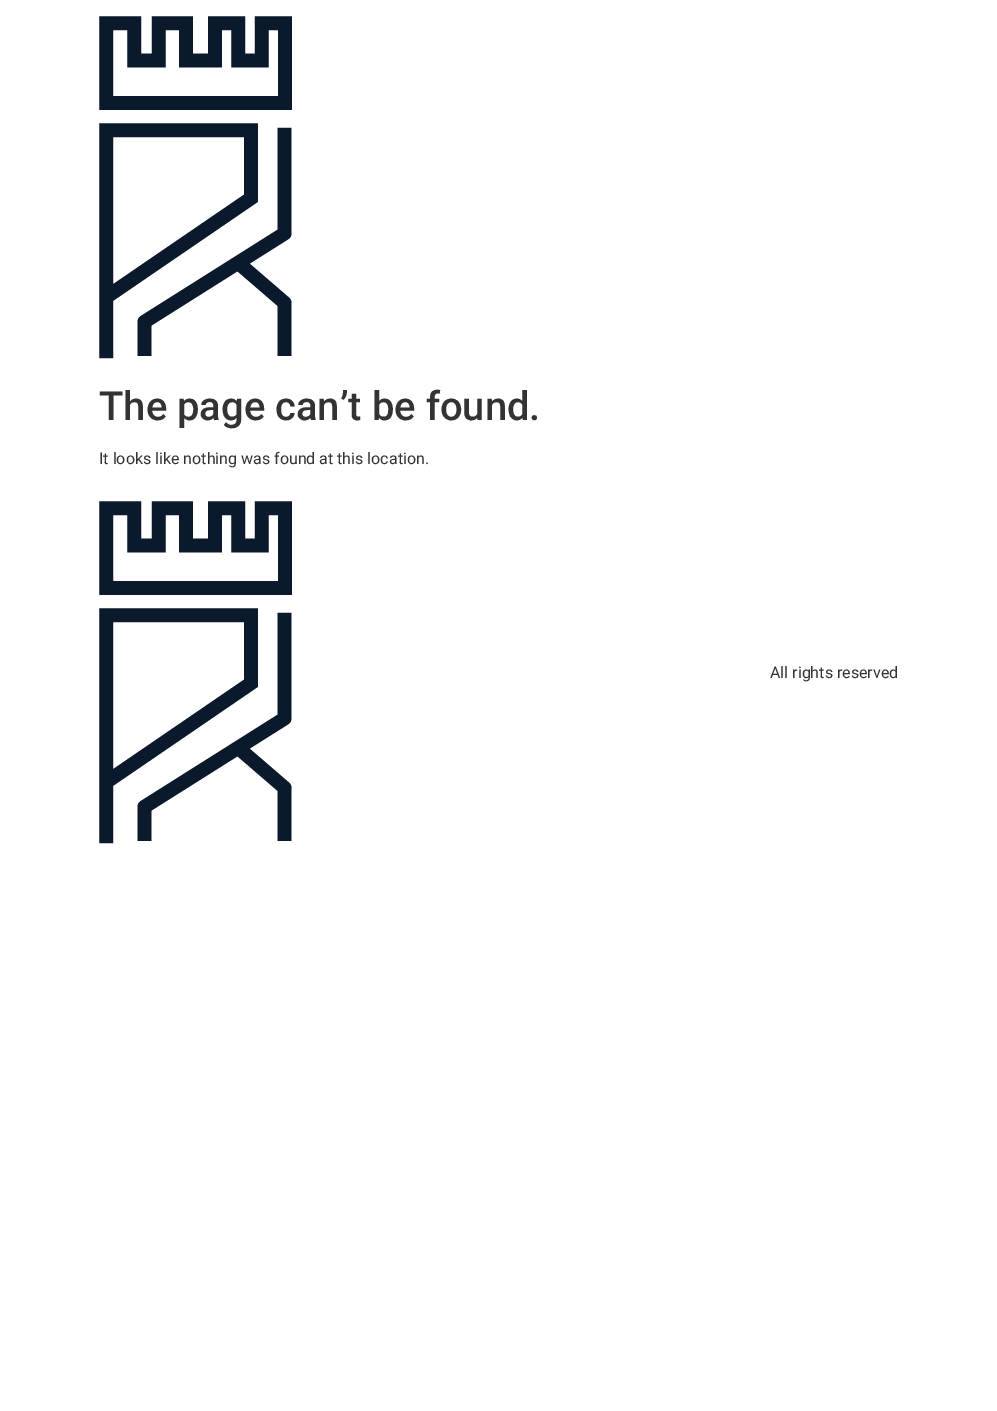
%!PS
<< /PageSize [997 1411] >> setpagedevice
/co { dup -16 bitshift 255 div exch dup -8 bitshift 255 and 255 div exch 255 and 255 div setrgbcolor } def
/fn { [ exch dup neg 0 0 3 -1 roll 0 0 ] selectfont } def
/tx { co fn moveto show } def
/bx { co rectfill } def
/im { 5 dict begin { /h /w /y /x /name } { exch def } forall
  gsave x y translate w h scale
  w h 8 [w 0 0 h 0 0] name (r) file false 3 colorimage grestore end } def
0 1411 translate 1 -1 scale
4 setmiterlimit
0 0 997 1411 16#FFFFFF bx
(media/1.raw) 99 16 193 343 im
(media/1.raw) 99 501 193 343 im
(The page can’t be found.) 99 420 /Roboto-Medium 40 16#333333 tx
(It looks like nothing was found at this location.) 99 464 /Roboto-Regular 16 16#333333 tx
(All rights reserved) 770 678 /Roboto-Regular 16 16#333333 tx
showpage
